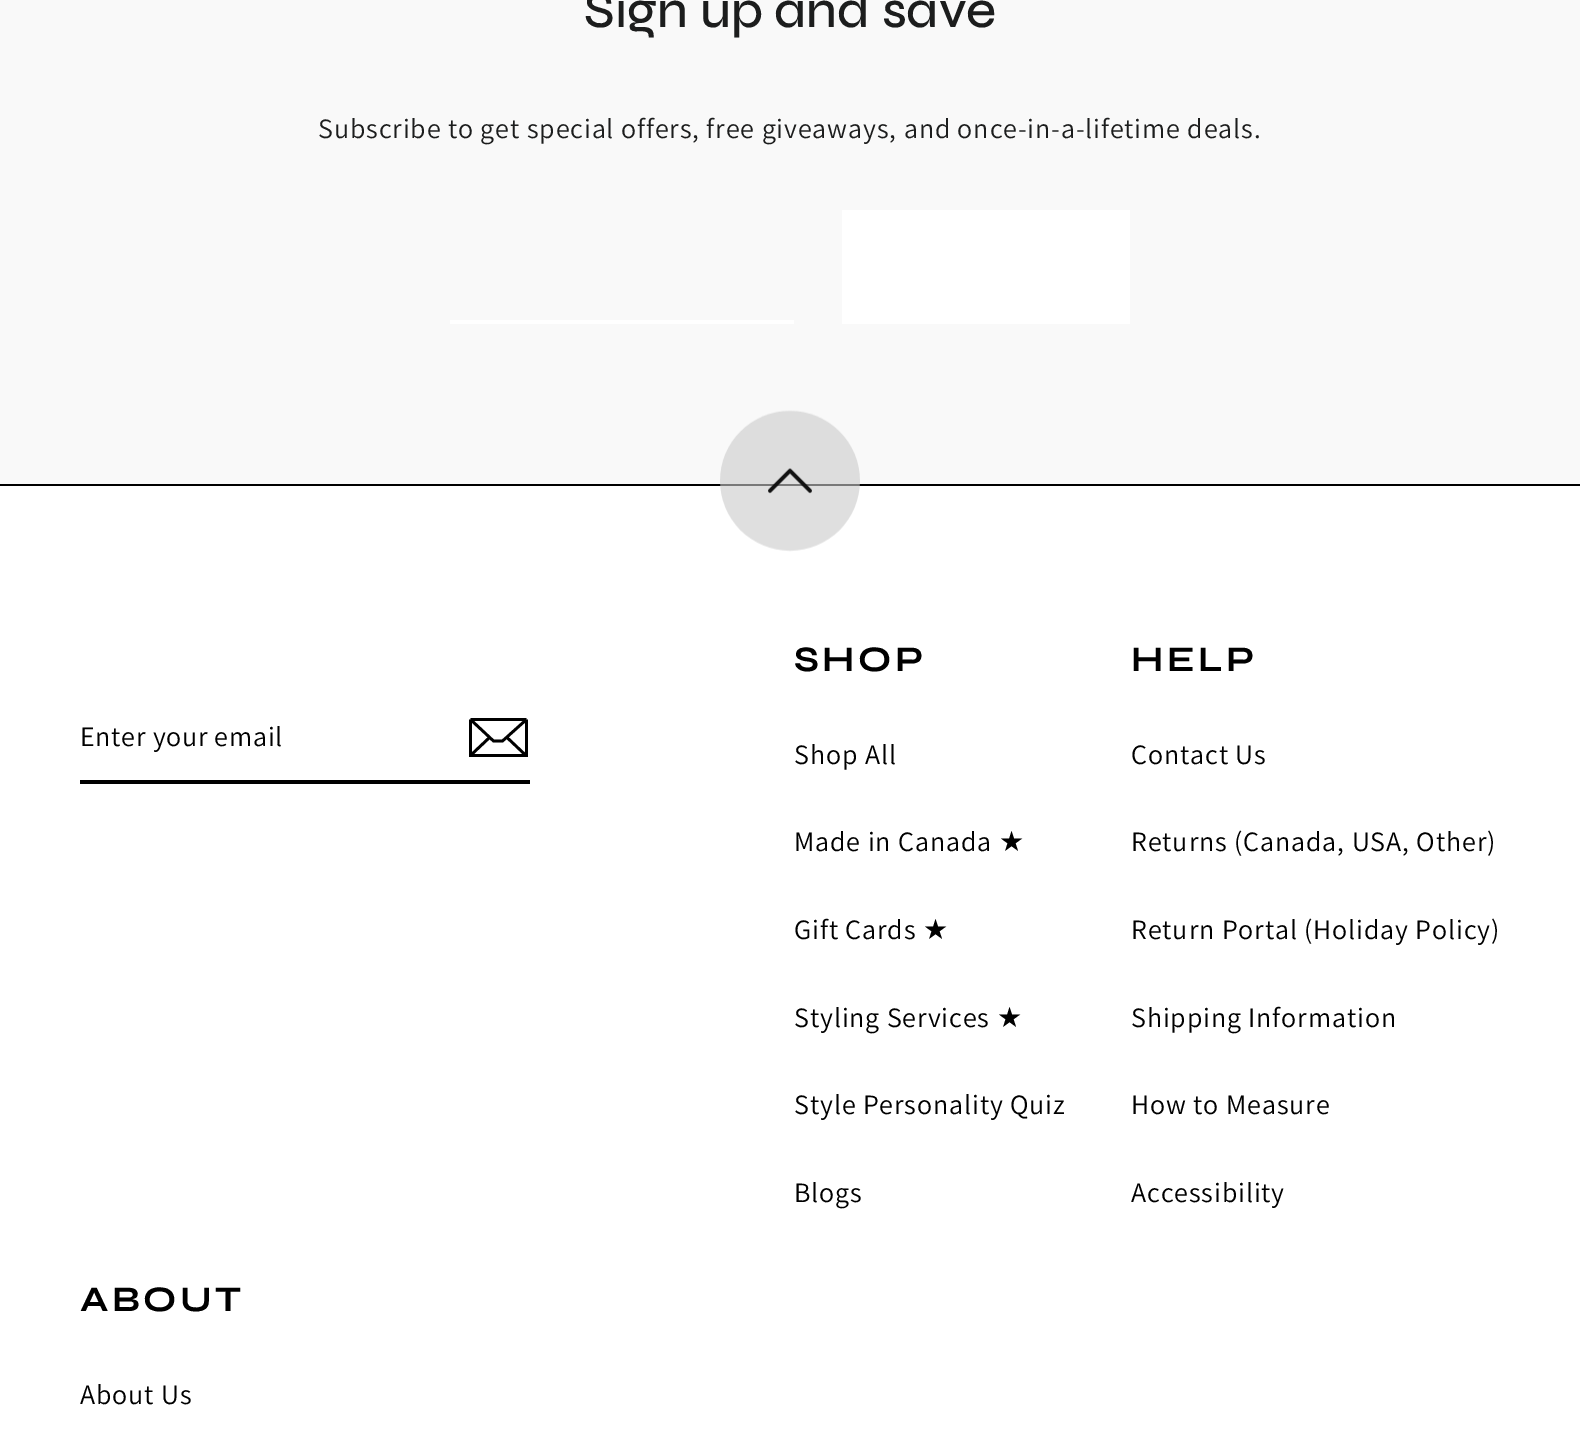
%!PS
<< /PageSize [1580 1439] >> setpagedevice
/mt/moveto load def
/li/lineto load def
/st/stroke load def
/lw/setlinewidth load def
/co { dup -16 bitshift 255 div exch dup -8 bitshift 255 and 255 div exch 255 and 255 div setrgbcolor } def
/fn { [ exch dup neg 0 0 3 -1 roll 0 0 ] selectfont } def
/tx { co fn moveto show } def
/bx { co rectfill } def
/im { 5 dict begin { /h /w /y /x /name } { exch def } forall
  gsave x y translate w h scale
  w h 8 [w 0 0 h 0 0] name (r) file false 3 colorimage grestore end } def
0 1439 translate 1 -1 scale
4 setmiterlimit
0 0 1580 1439 16#FFFFFF bx
0 0 1580 484 16#F9F9F9 bx
450 320 344 4 16#FFFFFF bx
842 210 288 114 16#FFFFFF bx
0 484 1580 2 16#000000 bx
(media/1.raw) 720 410 140 142 im
80 780 450 4 16#000000 bx
2.7 lw
470.5 719.5 mt 470.5 755.5 li 526.5 755.5 li 526.5 719.5 li 470.5 719.5 mt 526.5 719.5 li 470.5 719.5 mt 493.5 741 li 502.5 741 li 526.5 719.5 li 489.5 737.5 mt 471 755 li 526 755.5 mt 507 737.5 li st
(Sign up and save) 584 27 /Syne-Medium 52 16#1C1D1D tx
/Assistant-ExtraLight 28 fn
318 138 mt .9 0 (Subscribe to get special offers, free giveaways, and once-in-a-lifetime deals.) ashow
16#000000 co
80 746 mt .75 0 (Enter your email) ashow
/Syne-Bold 36 fn
794 671 mt 3.5 0 (SHOP) ashow
/Assistant-ExtraLight 28 fn
794 764 mt .9 0 (Shop All) ashow
794 851 mt .9 0 (Made in Canada) ashow
/DejaVuSans-Regular 28 fn
999 851 mt .9 0 (★) ashow
/Assistant-ExtraLight 28 fn
794 939 mt .9 0 (Gift Cards) ashow
/DejaVuSans-Regular 28 fn
923 939 mt .9 0 (★) ashow
/Assistant-ExtraLight 28 fn
794 1027 mt .9 0 (Styling Services) ashow
/DejaVuSans-Regular 28 fn
997 1027 mt .9 0 (★) ashow
/Assistant-ExtraLight 28 fn
794 1114 mt .9 0 (Style Personality Quiz) ashow
794 1202 mt .9 0 (Blogs) ashow
/Syne-Bold 36 fn
1131 671 mt 3.5 0 (HELP) ashow
/Assistant-ExtraLight 28 fn
1131 764 mt .9 0 (Contact Us) ashow
1131 851 mt .9 0 (Returns \(Canada, USA, Other\)) ashow
1131 939 mt .9 0 (Return Portal \(Holiday Policy\)) ashow
1131 1027 mt .9 0 (Shipping Information) ashow
1131 1114 mt .9 0 (How to Measure) ashow
1131 1202 mt .9 0 (Accessibility) ashow
/Syne-Bold 36 fn
80 1311 mt 3.5 0 (ABOUT) ashow
/Assistant-ExtraLight 28 fn
80 1404 mt .9 0 (About Us) ashow
showpage
